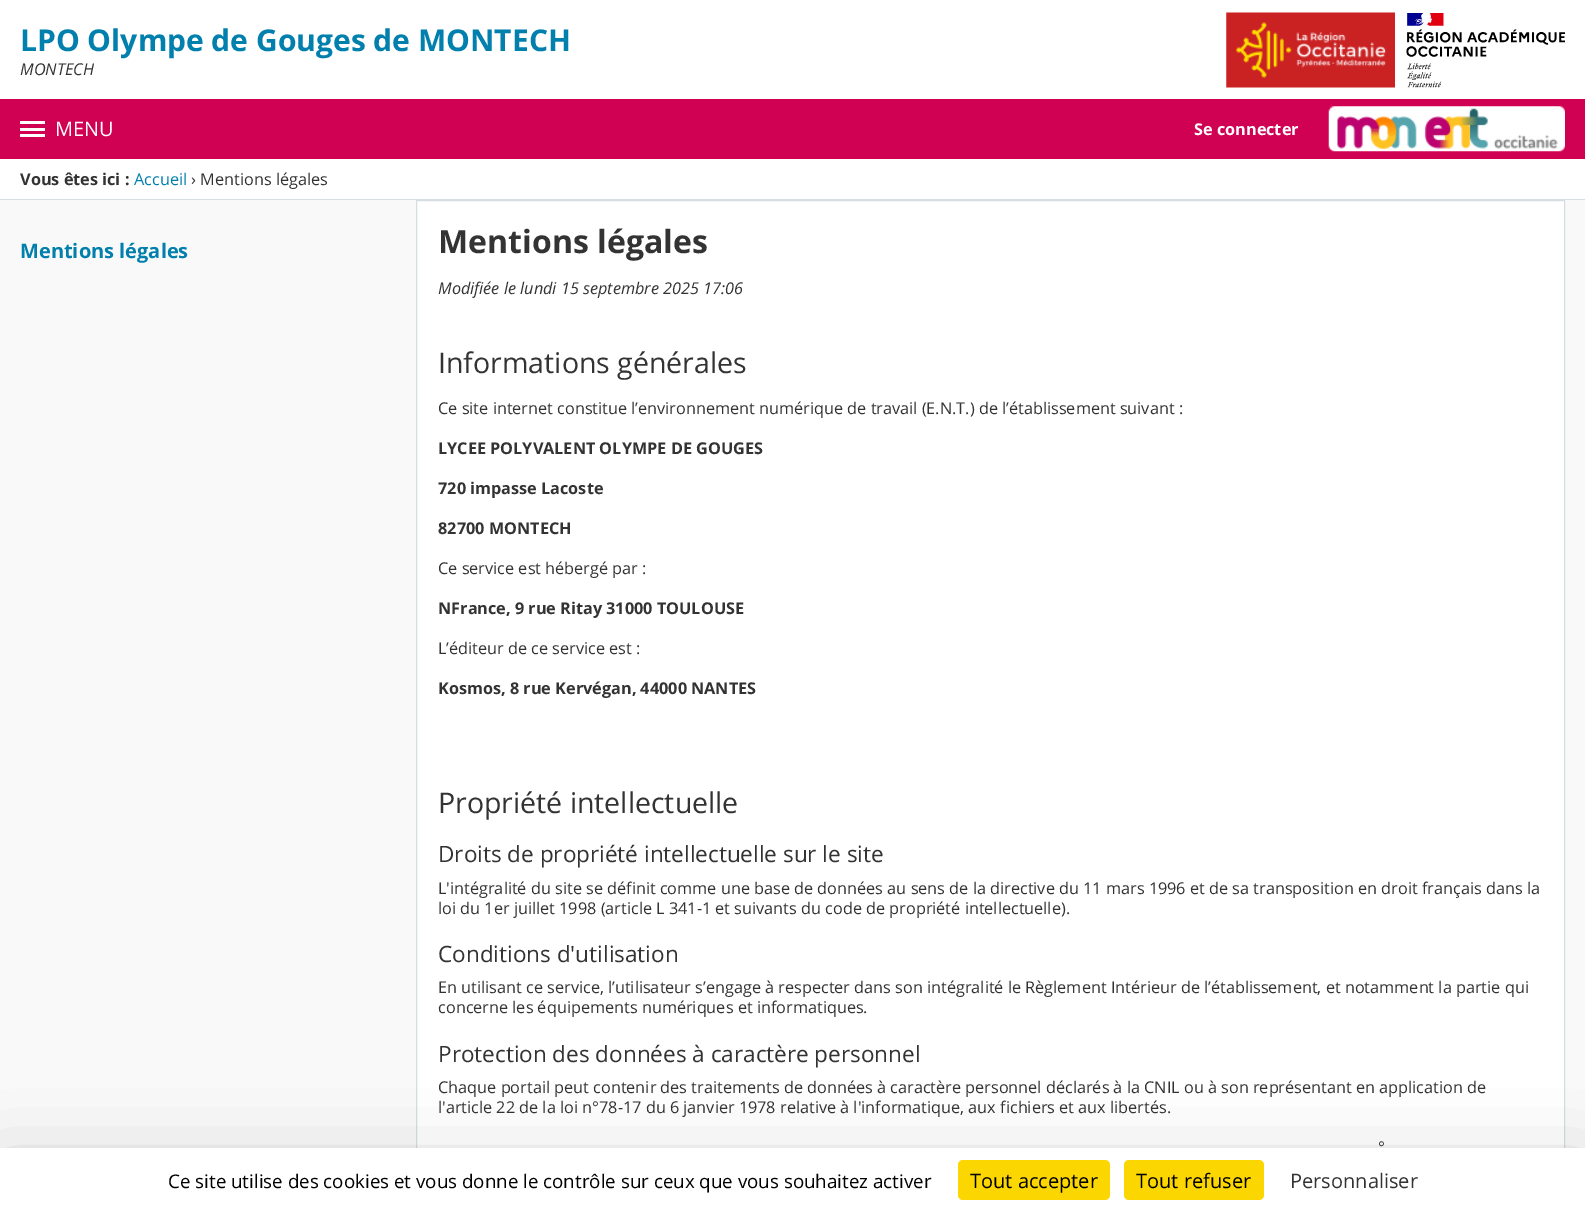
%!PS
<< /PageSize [1585 1212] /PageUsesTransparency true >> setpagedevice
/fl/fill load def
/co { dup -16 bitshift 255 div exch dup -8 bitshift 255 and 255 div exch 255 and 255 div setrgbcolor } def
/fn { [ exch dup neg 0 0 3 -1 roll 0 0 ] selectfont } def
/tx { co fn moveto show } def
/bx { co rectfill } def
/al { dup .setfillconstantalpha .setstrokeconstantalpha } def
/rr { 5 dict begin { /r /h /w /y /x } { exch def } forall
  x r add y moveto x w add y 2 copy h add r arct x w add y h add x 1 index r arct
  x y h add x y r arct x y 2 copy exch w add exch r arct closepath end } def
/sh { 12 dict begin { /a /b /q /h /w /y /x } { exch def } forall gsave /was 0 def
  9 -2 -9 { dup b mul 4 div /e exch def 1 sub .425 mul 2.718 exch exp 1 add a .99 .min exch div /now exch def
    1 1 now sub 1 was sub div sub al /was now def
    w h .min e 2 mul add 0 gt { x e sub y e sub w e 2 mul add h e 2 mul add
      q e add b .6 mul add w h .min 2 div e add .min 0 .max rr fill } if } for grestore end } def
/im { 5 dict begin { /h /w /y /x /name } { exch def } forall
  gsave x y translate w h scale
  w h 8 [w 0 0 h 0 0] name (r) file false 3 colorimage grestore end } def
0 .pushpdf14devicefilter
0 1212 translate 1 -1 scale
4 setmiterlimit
0 0 1585 1212 16#FFFFFF bx
(media/1.raw) 1226 12 169 76 im
(media/2.raw) 1406 13 159 75 im
0 99 1585 60 16#D00053 bx
20 121 25 3 16#FFFFFF bx
20 128 25 3 16#FFFFFF bx
20 134 25 3 16#FFFFFF bx
(media/3.raw) 1328 106 237 46 im
0 199 1585 1 16#D7DEE2 bx
0 200 1585 948 16#F9F9F9 bx
417 201 1147 947 16#FFFFFF bx
16#D7DEE2 co
416.5 200.5 1148 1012 rectstroke
16#000000 co
0 1173 1585 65 0 37.5 .25 sh
0 1148 1585 64 16#FFFFFF bx
16#FBD600 co
958 1160 152 40 5 rr fl
1124 1160 140 40 5 rr fl
(LPO Olympe de Gouges de MONTECH) 20 51 /OpenSans-Bold 30 16#017FAD tx
(MONTECH) 20 75 /OpenSans-Italic 16.25 16#333333 tx
(MENU) 55 136 /OpenSans-Regular 20 16#FFFFFF tx
(Se connecter) 1194 135 /OpenSans-Bold 16.25 16#FFFFFF tx
(Vous êtes ici :) 20 185 /OpenSans-Bold 16.25 16#333333 tx
(Accueil) 134 185 /OpenSans-Regular 16.25 16#017FAD tx
(› Mentions légales) 191 185 /OpenSans-Regular 16.25 16#333333 tx
(Mentions légales) 20 258 /OpenSans-Bold 20 16#017FAD tx
(Mentions légales) 438 253 /OpenSans-Bold 32 16#333333 tx
(Modifiée le lundi 15 septembre 2025 17:06) 438 294 /OpenSans-Italic 16.25 16#333333 tx
(Informations générales) 438 373 /OpenSans-Regular 28.5 16#333333 tx
(Ce site internet constitue l’environnement numérique de travail \(E.N.T.\) de l’établissement suivant :) 438 414 /OpenSans-Regular 16.25 16#333333 tx
(LYCEE POLYVALENT OLYMPE DE GOUGES) 438 454 /OpenSans-Bold 16.25 16#333333 tx
(720 impasse Lacoste) 438 494 /OpenSans-Bold 16.25 16#333333 tx
(82700 MONTECH) 438 534 /OpenSans-Bold 16.25 16#333333 tx
(Ce service est hébergé par :) 438 574 /OpenSans-Regular 16.25 16#333333 tx
(NFrance, 9 rue Ritay 31000 TOULOUSE) 438 614 /OpenSans-Bold 16.25 16#333333 tx
(L’éditeur de ce service est :) 438 654 /OpenSans-Regular 16.25 16#333333 tx
(Kosmos, 8 rue Kervégan, 44000 NANTES) 438 694 /OpenSans-Bold 16.25 16#333333 tx
(Propriété intellectuelle) 438 813 /OpenSans-Regular 28.5 16#333333 tx
(Droits de propriété intellectuelle sur le site) 438 862 /OpenSans-Regular 22.5 16#333333 tx
(L'intégralité du site se définit comme une base de données au sens de la directive du 11 mars 1996 et de sa transposition en droit français dans la) 438 894 /OpenSans-Regular 16.25 16#333333 tx
(loi du 1er juillet 1998 \(article L 341-1 et suivants du code de propriété intellectuelle\).) 438 914 /OpenSans-Regular 16.25 16#333333 tx
(Conditions d'utilisation) 438 962 /OpenSans-Regular 22.5 16#333333 tx
(En utilisant ce service, l’utilisateur s’engage à respecter dans son intégralité le Règlement Intérieur de l’établissement, et notamment la partie qui) 438 993 /OpenSans-Regular 16.25 16#333333 tx
(concerne les équipements numériques et informatiques.) 438 1013 /OpenSans-Regular 16.25 16#333333 tx
(Protection des données à caractère personnel) 438 1062 /OpenSans-Regular 22.5 16#333333 tx
(Chaque portail peut contenir des traitements de données à caractère personnel déclarés à la CNIL ou à son représentant en application de) 438 1093 /OpenSans-Regular 16.25 16#333333 tx
(l'article 22 de la loi n°78-17 du 6 janvier 1978 relative à l'informatique, aux fichiers et aux libertés.) 438 1113 /OpenSans-Regular 16.25 16#333333 tx
(°) 1378 1153 /OpenSans-Regular 16.25 16#333333 tx
(Ce site utilise des cookies et vous donne le contrôle sur ceux que vous souhaitez activer) 168 1188 /OpenSans-Regular 18.75 16#000000 tx
(Tout accepter) 970 1188 /OpenSans-Regular 20 16#000000 tx
(Tout refuser) 1136 1188 /OpenSans-Regular 20 16#000000 tx
(Personnaliser) 1290 1188 /OpenSans-Regular 20 16#333333 tx
.poppdf14devicefilter showpage
